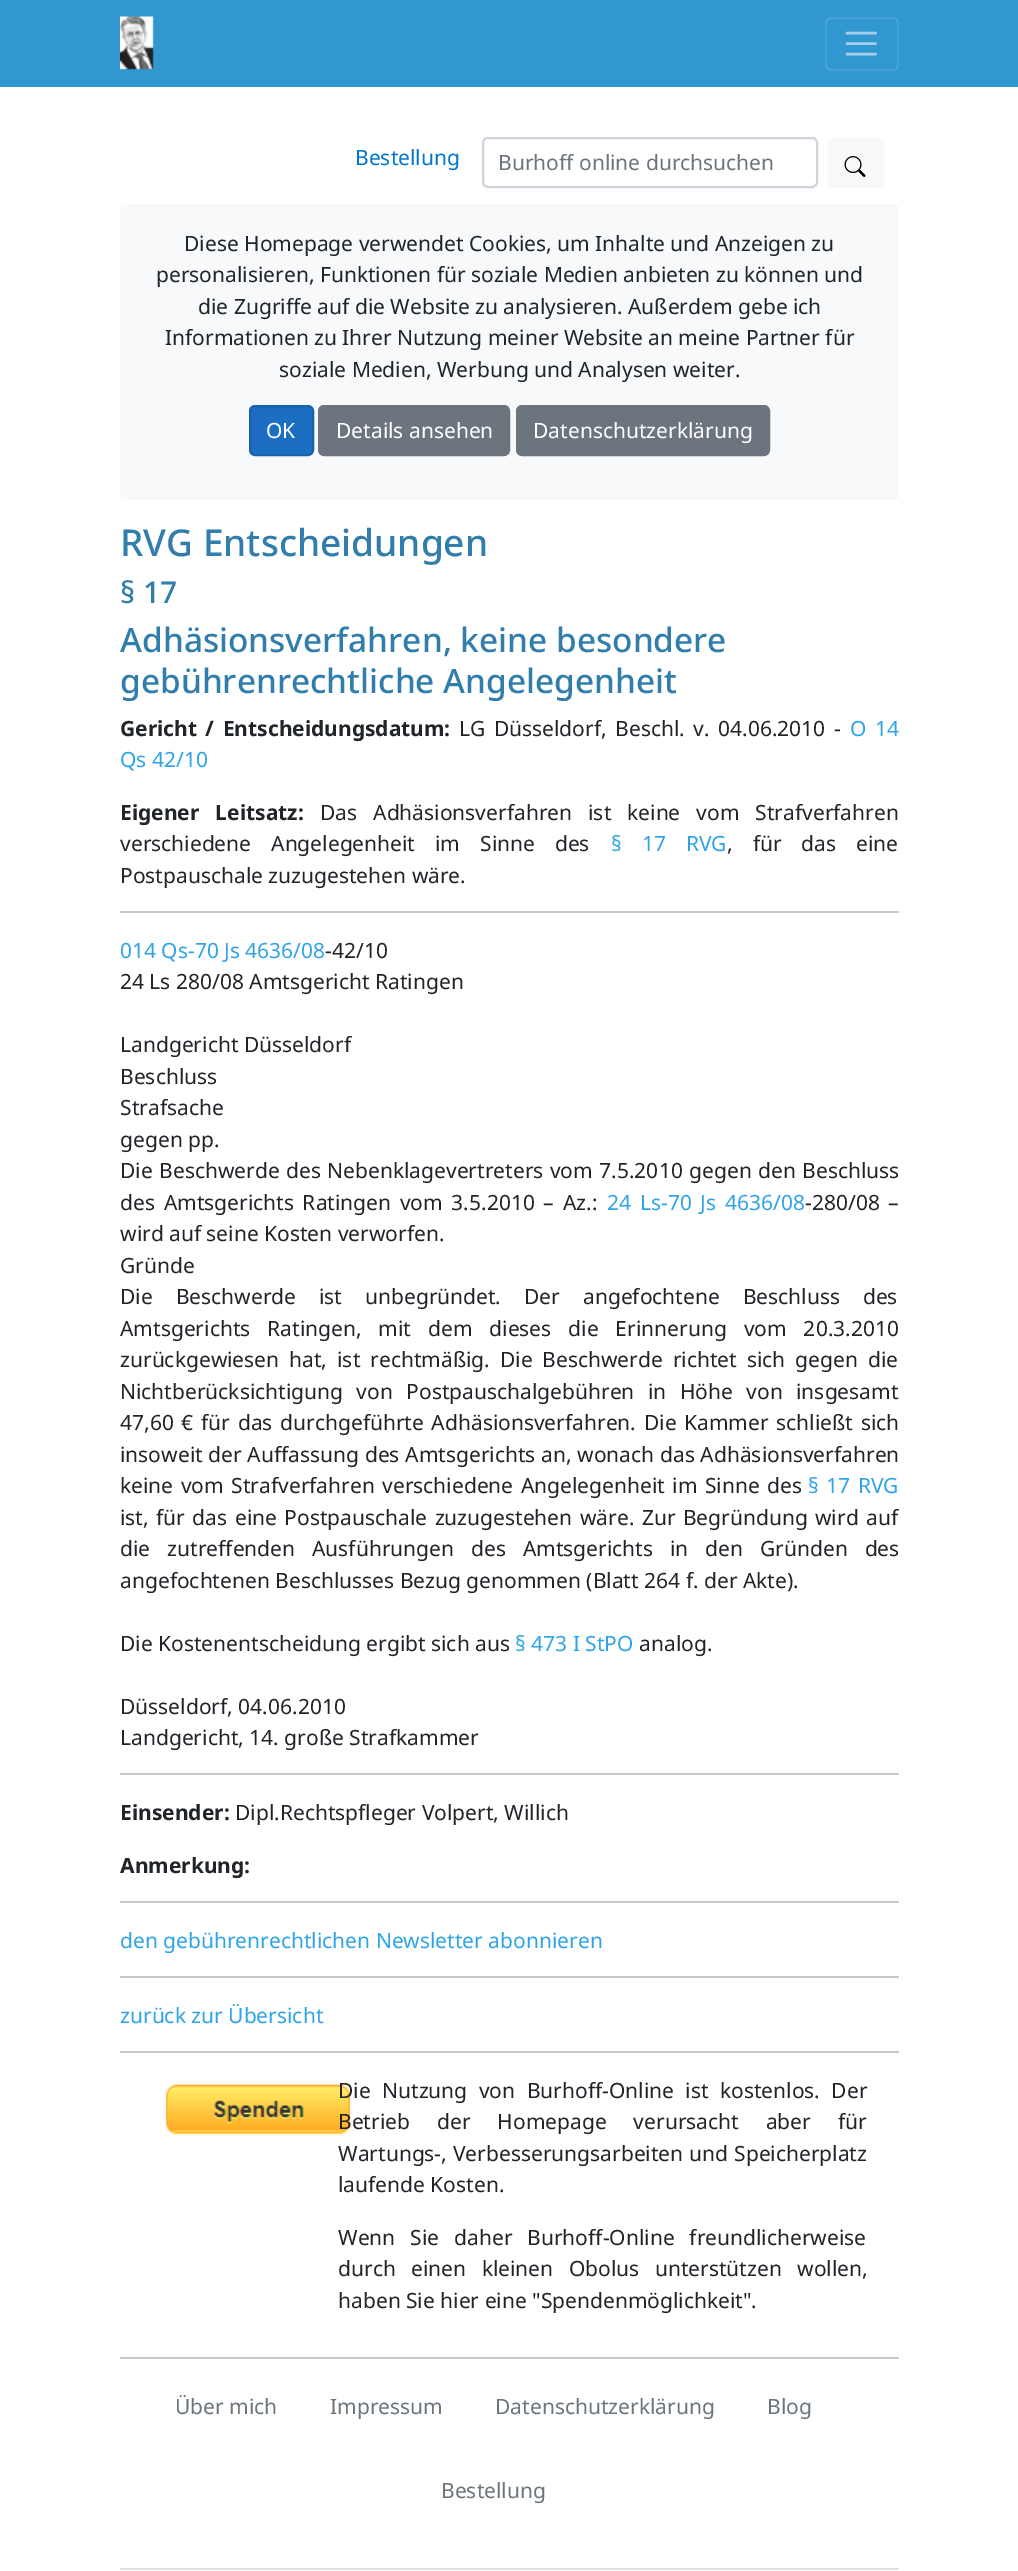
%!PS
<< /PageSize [1018 2571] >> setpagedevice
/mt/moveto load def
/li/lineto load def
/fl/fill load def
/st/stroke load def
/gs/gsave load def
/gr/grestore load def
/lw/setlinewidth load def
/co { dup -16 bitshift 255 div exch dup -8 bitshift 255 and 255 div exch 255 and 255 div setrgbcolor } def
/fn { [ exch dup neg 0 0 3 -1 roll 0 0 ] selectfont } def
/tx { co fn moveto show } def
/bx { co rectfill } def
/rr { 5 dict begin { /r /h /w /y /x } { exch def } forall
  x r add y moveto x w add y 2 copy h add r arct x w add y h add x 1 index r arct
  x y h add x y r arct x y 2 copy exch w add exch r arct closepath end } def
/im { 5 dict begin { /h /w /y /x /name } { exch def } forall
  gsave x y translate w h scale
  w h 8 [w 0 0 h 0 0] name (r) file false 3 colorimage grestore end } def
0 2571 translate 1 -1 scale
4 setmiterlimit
0 0 1018 2571 16#FFFFFF bx
0 0 1018 87 16#3097D1 bx
(media/1.raw) 120 16 34 54 im
16#45A1D6 co
2 lw
826 18 72 52 5 rr st
16#A2D0EA co
2.6 lw
1 setlinecap
847 33 mt 875.5 33 li 847 43.5 mt 875.5 43.5 li 847 54 mt 875.5 54 li st
16#CED4DA co
2 lw
0 setlinecap
483 138 334 49 5 rr st
16#F8F9FA co
828 137 56 51 6 rr fl
(media/2.raw) 844 156 22 21 im
120 204 779 296 6 rr fl
16#1B6EC2 co
250 406 63 49 5 rr gs fl gr
16#1861AC co
st
16#6C757D co
319 406 190 49 5 rr gs fl gr
st
517 406 252 49 5 rr gs fl gr
st
120 911 779 2 16#C8C9CA bx
120 1773 779 2 16#C8C9CA bx
120 1901 779 2 16#C8C9CA bx
120 1976 779 2 16#C8C9CA bx
120 2051 779 2 16#C8C9CA bx
(media/3.raw) 165 2084 186 53 im
120 2357 779 2 16#C8C9CA bx
120 2568 779 2 16#DEE2E6 bx
(Bestellung) 355 165 /NotoSans-Regular 21 16#0077CC tx
(Burhoff online durchsuchen) 498 170 /NotoSans-Regular 21 16#6C757D tx
(Diese Homepage verwendet Cookies, um Inhalte und Anzeigen zu) 184 251 /NotoSans-Regular 21 16#212529 tx
(personalisieren, Funktionen für soziale Medien anbieten zu können und) 156 282 /NotoSans-Regular 21 16#212529 tx
(die Zugriffe auf die Website zu analysieren. Außerdem gebe ich) 198 314 /NotoSans-Regular 21 16#212529 tx
(Informationen zu Ihrer Nutzung meiner Website an meine Partner für) 165 345 /NotoSans-Regular 21 16#212529 tx
(soziale Medien, Werbung und Analysen weiter.) 279 377 /NotoSans-Regular 21 16#212529 tx
(OK) 266 438 /NotoSans-Regular 21 16#FFFFFF tx
(Details ansehen) 336 438 /NotoSans-Regular 21 16#FFFFFF tx
(Datenschutzerklärung) 533 438 /NotoSans-Regular 21 16#FFFFFF tx
(RVG Entscheidungen) 120 556 /NotoSans-Medium 37 16#317EAC tx
(§ 17) 120 603 /NotoSans-Medium 30 16#317EAC tx
(Adhäsionsverfahren, keine besondere) 120 652 /NotoSans-Medium 33.4 16#317EAC tx
(gebührenrechtliche Angelegenheit) 120 693 /NotoSans-Medium 33.4 16#317EAC tx
/NotoSans-Bold 21 fn
16#212529 co
120 736 mt 3 0 32 (Gericht / Entscheidungsdatum:) widthshow
/NotoSans-Regular 21 fn
459 736 mt 3 0 32 (LG Düsseldorf, Beschl. v. 04.06.2010 -) widthshow
16#2FA4E7 co
850 736 mt 3 0 32 (O 14) widthshow
(Qs 42/10) 120 767 /NotoSans-Regular 21 16#2FA4E7 tx
/NotoSans-Bold 21 fn
16#212529 co
120 820 mt 10.5 0 32 (Eigener Leitsatz:) widthshow
/NotoSans-Regular 21 fn
320 820 mt 10.5 0 32 (Das Adhäsionsverfahren ist keine vom Strafverfahren) widthshow
120 851 mt 14.5 0 32 (verschiedene Angelegenheit im Sinne des) widthshow
16#2FA4E7 co
611 851 mt 14.5 0 32 (§ 17 RVG) widthshow
16#212529 co
727 851 mt 14.5 0 32 (, für das eine) widthshow
(Postpauschale zuzugestehen wäre.) 120 883 /NotoSans-Regular 21 16#212529 tx
(014 Qs-70 Js 4636/08) 120 958 /NotoSans-Regular 21 16#2FA4E7 tx
(-42/10) 325 958 /NotoSans-Regular 21 16#212529 tx
(24 Ls 280/08 Amtsgericht Ratingen) 120 989 /NotoSans-Regular 21 16#212529 tx
(Landgericht Düsseldorf) 120 1052 /NotoSans-Regular 21 16#212529 tx
(Beschluss) 120 1084 /NotoSans-Regular 21 16#212529 tx
(Strafsache) 120 1115 /NotoSans-Regular 21 16#212529 tx
(gegen pp.) 120 1147 /NotoSans-Regular 21 16#212529 tx
120 1178 mt 1 0 32 (Die Beschwerde des Nebenklagevertreters vom 7.5.2010 gegen den Beschluss) widthshow
120 1210 mt 3.25 0 32 (des Amtsgerichts Ratingen vom 3.5.2010 – Az.:) widthshow
16#2FA4E7 co
607 1210 mt 3.25 0 32 (24 Ls-70 Js 4636/08) widthshow
16#212529 co
805 1210 mt 3.25 0 32 (-280/08 –) widthshow
(wird auf seine Kosten verworfen.) 120 1241 /NotoSans-Regular 21 16#212529 tx
(Gründe) 120 1273 /NotoSans-Regular 21 16#212529 tx
120 1304 mt 17.5 0 32 (Die Beschwerde ist unbegründet. Der angefochtene Beschluss des) widthshow
120 1336 mt 11.5 0 32 (Amtsgerichts Ratingen, mit dem dieses die Erinnerung vom 20.3.2010) widthshow
120 1367 mt 4.5 0 32 (zurückgewiesen hat, ist rechtmäßig. Die Beschwerde richtet sich gegen die) widthshow
120 1399 mt 8 0 32 (Nichtberücksichtigung von Postpauschalgebühren in Höhe von insgesamt) widthshow
120 1430 mt 2.25 0 32 (47,60 € für das durchgeführte Adhäsionsverfahren. Die Kammer schließt sich) widthshow
120 1462 mt .25 0 32 (insoweit der Auffassung des Amtsgerichts an, wonach das Adhäsionsverfahren) widthshow
120 1493 mt 2 0 32 (keine vom Strafverfahren verschiedene Angelegenheit im Sinne des) widthshow
16#2FA4E7 co
808 1493 mt 2 0 32 (§ 17 RVG) widthshow
16#212529 co
120 1525 mt 2 0 32 (ist, für das eine Postpauschale zuzugestehen wäre. Zur Begründung wird auf) widthshow
120 1556 mt 11.5 0 32 (die zutreffenden Ausführungen des Amtsgerichts in den Gründen des) widthshow
(angefochtenen Beschlusses Bezug genommen \(Blatt 264 f. der Akte\).) 120 1588 /NotoSans-Regular 21 16#212529 tx
(Die Kostenentscheidung ergibt sich aus) 120 1651 /NotoSans-Regular 21 16#212529 tx
(§ 473 I StPO) 515 1651 /NotoSans-Regular 21 16#2FA4E7 tx
(analog.) 639 1651 /NotoSans-Regular 21 16#212529 tx
(Düsseldorf, 04.06.2010) 120 1714 /NotoSans-Regular 21 16#212529 tx
(Landgericht, 14. große Strafkammer) 120 1745 /NotoSans-Regular 21 16#212529 tx
(Einsender:) 120 1820 /NotoSans-Bold 21 16#212529 tx
(Dipl.Rechtspfleger Volpert, Willich) 235 1820 /NotoSans-Regular 21 16#212529 tx
(Anmerkung:) 120 1873 /NotoSans-Bold 21 16#212529 tx
(den gebührenrechtlichen Newsletter abonnieren) 120 1948 /NotoSans-Regular 21 16#2FA4E7 tx
(zurück zur Übersicht) 120 2023 /NotoSans-Regular 21 16#2FA4E7 tx
16#212529 co
338 2098 mt 6 0 32 (Die Nutzung von Burhoff-Online ist kostenlos. Der) widthshow
338 2129 mt 21.5 0 32 (Betrieb der Homepage verursacht aber für) widthshow
338 2161 mt .5 0 32 (Wartungs-, Verbesserungsarbeiten und Speicherplatz) widthshow
(laufende Kosten.) 338 2192 /NotoSans-Regular 21 16#212529 tx
338 2245 mt 9.5 0 32 (Wenn Sie daher Burhoff-Online freundlicherweise) widthshow
338 2276 mt 10 0 32 (durch einen kleinen Obolus unterstützen wollen,) widthshow
(haben Sie hier eine "Spendenmöglichkeit".) 338 2308 /NotoSans-Regular 21 16#212529 tx
(Über mich) 175 2414 /NotoSans-Regular 21 16#6C757D tx
(Impressum) 330 2414 /NotoSans-Regular 21 16#6C757D tx
(Datenschutzerklärung) 495 2414 /NotoSans-Regular 21 16#6C757D tx
(Blog) 767 2414 /NotoSans-Regular 21 16#6C757D tx
(Bestellung) 441 2498 /NotoSans-Regular 21 16#6C757D tx
showpage
